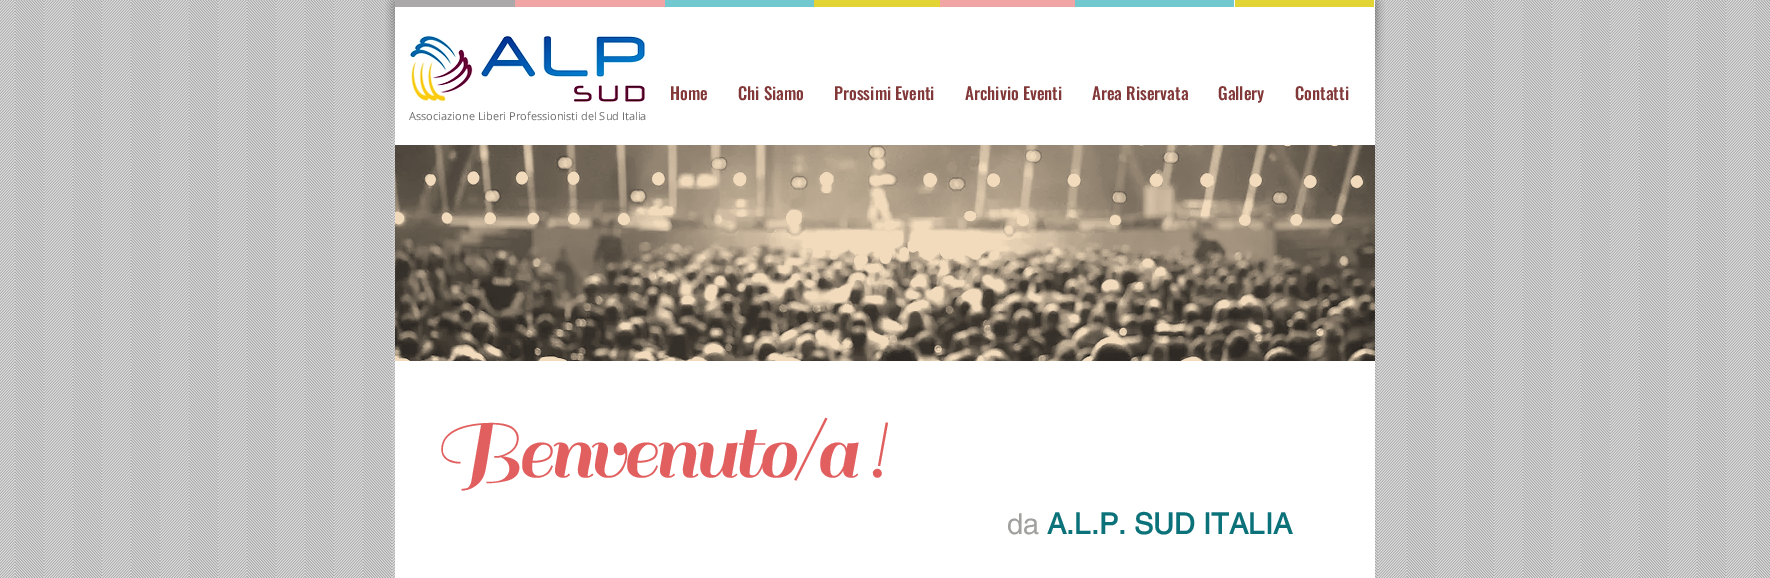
%!PS
<< /PageSize [1770 578] >> setpagedevice
/mt/moveto load def
/co { dup -16 bitshift 255 div exch dup -8 bitshift 255 and 255 div exch 255 and 255 div setrgbcolor } def
/fn { [ exch dup neg 0 0 3 -1 roll 0 0 ] selectfont } def
/tx { co fn moveto show } def
/bx { co rectfill } def
/im { 5 dict begin { /h /w /y /x /name } { exch def } forall
  gsave x y translate w h scale
  w h 8 [w 0 0 h 0 0] name (r) file false 3 colorimage grestore end } def
0 578 translate 1 -1 scale
4 setmiterlimit
0 0 1770 578 16#E2E2E2 bx
(media/1.raw) 0 0 1770 578 im
(media/2.raw) 385 0 10 138 im
395 0 980 145 16#FFFFFF bx
(media/3.raw) 1375 0 10 138 im
395 0 126 7 16#AAA8A8 bx
515 0 150 7 16#F1A4A4 bx
665 0 150 7 16#71C9CF bx
934 0 141 7 16#F1A4A4 bx
814 0 126 7 16#E2D434 bx
1075 0 159 7 16#71C9CF bx
1235 0 139 7 16#E2D434 bx
(media/4.raw) 410 35 235 67 im
395 361 980 217 16#FFFFFF bx
(media/5.raw) 395 145 980 216 im
(Home) 670 100 /Oswald-Medium 17 16#823838 tx
(Chi Siamo) 738 100 /Oswald-Medium 17 16#823838 tx
(Prossimi Eventi) 834 100 /Oswald-Medium 17 16#823838 tx
(Archivio Eventi) 965 100 /Oswald-Medium 17 16#823838 tx
(Area Riservata) 1092 100 /Oswald-Medium 17 16#823838 tx
(Gallery) 1218 100 /Oswald-Medium 17 16#823838 tx
(Contatti) 1295 100 /Oswald-Medium 17 16#823838 tx
(Associazione Liberi Professionisti del Sud Italia) 409 120 /OpenSans-Regular 11 16#717070 tx
/Sail-Regular 89 fn
16#E25F5F co
434 477 mt -4.5 0 (Benvenuto/a !) ashow
(da) 1007 534 /helvetica-Regular 29 16#A0A09F tx
(A.L.P. SUD ITALIA) 1047 534 /helvetica-Bold 29 16#0B727A tx
showpage
